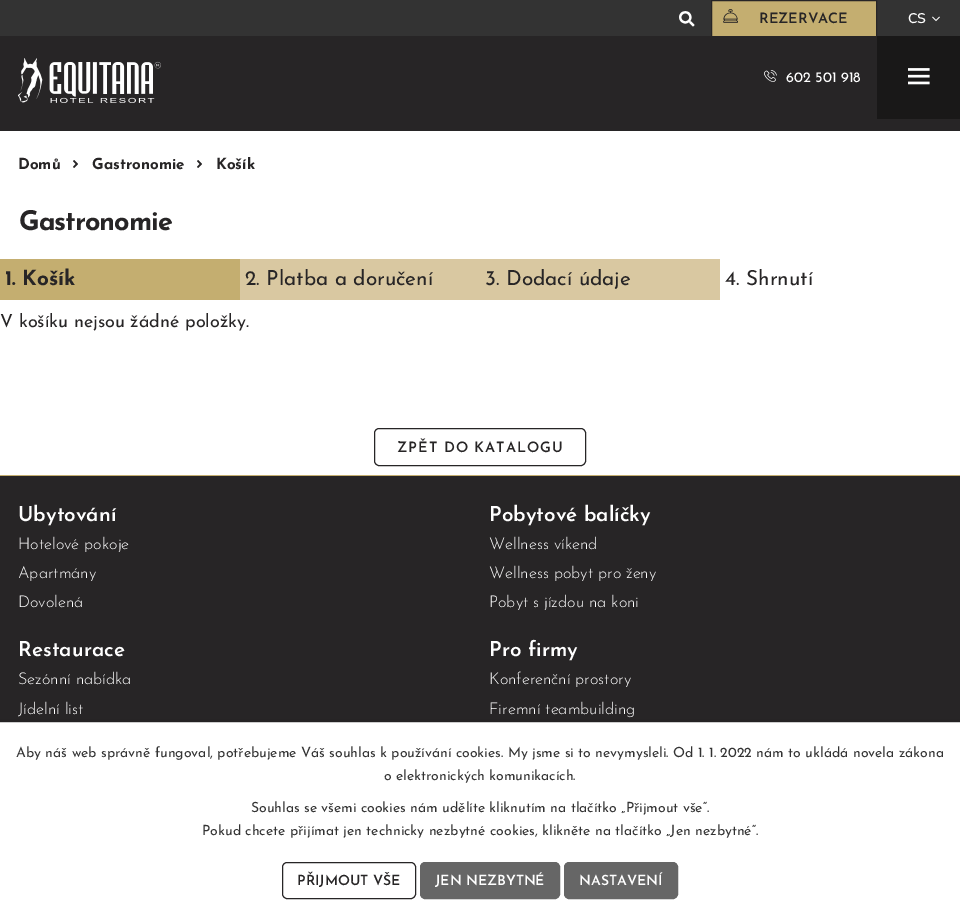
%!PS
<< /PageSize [960 918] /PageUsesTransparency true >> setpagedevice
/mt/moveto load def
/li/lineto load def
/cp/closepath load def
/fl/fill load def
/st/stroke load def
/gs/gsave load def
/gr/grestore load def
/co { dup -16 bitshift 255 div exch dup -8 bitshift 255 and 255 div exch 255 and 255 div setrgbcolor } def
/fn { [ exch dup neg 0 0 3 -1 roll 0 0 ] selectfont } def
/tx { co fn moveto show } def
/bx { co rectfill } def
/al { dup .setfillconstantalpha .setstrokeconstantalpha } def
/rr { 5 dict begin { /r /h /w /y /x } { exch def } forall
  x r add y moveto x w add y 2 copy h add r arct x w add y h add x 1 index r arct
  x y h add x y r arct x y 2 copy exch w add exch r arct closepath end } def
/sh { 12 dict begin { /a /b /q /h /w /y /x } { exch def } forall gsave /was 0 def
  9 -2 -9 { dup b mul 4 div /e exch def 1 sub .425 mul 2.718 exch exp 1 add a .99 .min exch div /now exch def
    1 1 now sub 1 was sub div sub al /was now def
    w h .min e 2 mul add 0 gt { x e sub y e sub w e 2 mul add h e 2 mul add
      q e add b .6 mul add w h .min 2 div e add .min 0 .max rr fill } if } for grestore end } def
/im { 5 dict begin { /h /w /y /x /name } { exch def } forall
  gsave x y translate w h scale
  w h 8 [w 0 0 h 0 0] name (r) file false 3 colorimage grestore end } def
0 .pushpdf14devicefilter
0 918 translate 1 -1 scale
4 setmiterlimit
0 0 960 918 16#FFFFFF bx
0 0 960 36 16#333333 bx
(media/1.raw) 679 11 16 16 im
16#C4AE70 co
711.5 .5 mt 876.5 .5 li 876.5 36.5 li 711.5 36.5 li cp gs fl gr
16#272526 co
st
(media/2.raw) 723 9 15 14 im
(media/3.raw) 932 16 8 6 im
0 36 960 95 16#272526 bx
(media/4.raw) 764 70 13 12 im
(media/5.raw) 18 58 143 45 im
877 36 83 83 16#191818 bx
(media/6.raw) 908 68 22 17 im
(media/7.raw) 73 160 5 8 im
(media/7.raw) 197 160 5 8 im
0 259 240 41 16#C4AE70 bx
240 259 480 41 16#D9C8A1 bx
16#272526 co
374.5 428.5 211 37 4.5 rr st
0 476 960 246 16#272526 bx
0 475 960 1 16#C4AE70 bx
16#000000 co
0 722 960 196 0 2.5 .2 sh
0 723 960 195 16#FFFFFF bx
0 722 960 1 16#CCCCCC bx
16#272526 co
282.5 862.5 133 36 4.5 rr st
16#666666 co
420.5 862.5 139 36 4.5 rr gs fl gr
st
564.5 862.5 113 36 4.5 rr gs fl gr
st
(REZERVACE) 759 23 /JosefinSans-SemiBold 14.4 16#272526 tx
(CS) 908 23 /Nunito-ExtraLight 14 16#FFFFFF tx
(602 501 918) 786 82 /JosefinSans-Regular 14.4 16#FFFFFF tx
(Domů) 18 169 /JosefinSans-Bold 15.25 16#272526 tx
(Gastronomie) 92 169 /JosefinSans-Bold 15.25 16#272526 tx
(Košík) 216 169 /JosefinSans-Bold 15.25 16#272526 tx
/JosefinSans-Bold 27 fn
19 230 mt -1 0 (Gastronomie) ashow
(1. Košík) 5 285 /JosefinSans-Bold 20.75 16#272526 tx
(2. Platba a doručení) 245 285 /JosefinSans-Regular 20.75 16#272526 tx
(3. Dodací údaje) 485 285 /JosefinSans-Regular 20.75 16#272526 tx
(4. Shrnutí) 725 285 /JosefinSans-Regular 20.75 16#272526 tx
(V košíku nejsou žádné položky.) 0 327 /JosefinSans-Regular 18 16#272526 tx
/JosefinSans-SemiBold 14.4 fn
397 452 mt 1 0 (ZPĚT DO KATALOGU) ashow
(Ubytování) 18 521 /JosefinSans-SemiBold 20.75 16#FFFFFF tx
(Hotelové pokoje) 18 549 /JosefinSans-Light 16.25 16#FFFFFF tx
(Apartmány) 18 578 /JosefinSans-Light 16.25 16#FFFFFF tx
(Dovolená) 18 607 /JosefinSans-Light 16.25 16#FFFFFF tx
(Pobytové balíčky) 489 521 /JosefinSans-SemiBold 20.75 16#FFFFFF tx
(Wellness víkend) 489 549 /JosefinSans-Light 16.25 16#FFFFFF tx
(Wellness pobyt pro ženy) 489 578 /JosefinSans-Light 16.25 16#FFFFFF tx
(Pobyt s jízdou na koni) 489 607 /JosefinSans-Light 16.25 16#FFFFFF tx
(Restaurace) 18 656 /JosefinSans-SemiBold 20.75 16#FFFFFF tx
(Sezónní nabídka) 18 684 /JosefinSans-Light 16.25 16#FFFFFF tx
(Jídelní list) 18 714 /JosefinSans-Light 16.25 16#FFFFFF tx
(Pro firmy) 489 656 /JosefinSans-SemiBold 20.75 16#FFFFFF tx
(Konferenční prostory) 489 684 /JosefinSans-Light 16.25 16#FFFFFF tx
(Firemní teambuilding) 489 714 /JosefinSans-Light 16.25 16#FFFFFF tx
(Aby náš web správně fungoval, potřebujeme Váš souhlas k používání cookies. My jsme si to nevymysleli. Od 1. 1. 2022 nám to ukládá novela zákona) 16 757 /JosefinSans-Regular 14 16#333333 tx
(o elektronických komunikacích.) 384 780 /JosefinSans-Regular 14 16#333333 tx
(Souhlas se všemi cookies nám udělíte kliknutím na tlačítko „Přijmout vše“.) 251 812 /JosefinSans-Regular 14 16#333333 tx
(Pokud chcete přijímat jen technicky nezbytné cookies, klikněte na tlačítko „Jen nezbytné“.) 202 835 /JosefinSans-Regular 14 16#333333 tx
(PŘIJMOUT VŠE) 297 885 /JosefinSans-SemiBold 14 16#272526 tx
(JEN NEZBYTNÉ) 435 885 /JosefinSans-SemiBold 14 16#FFFFFF tx
(NASTAVENÍ) 579 885 /JosefinSans-SemiBold 14 16#FFFFFF tx
.poppdf14devicefilter showpage
